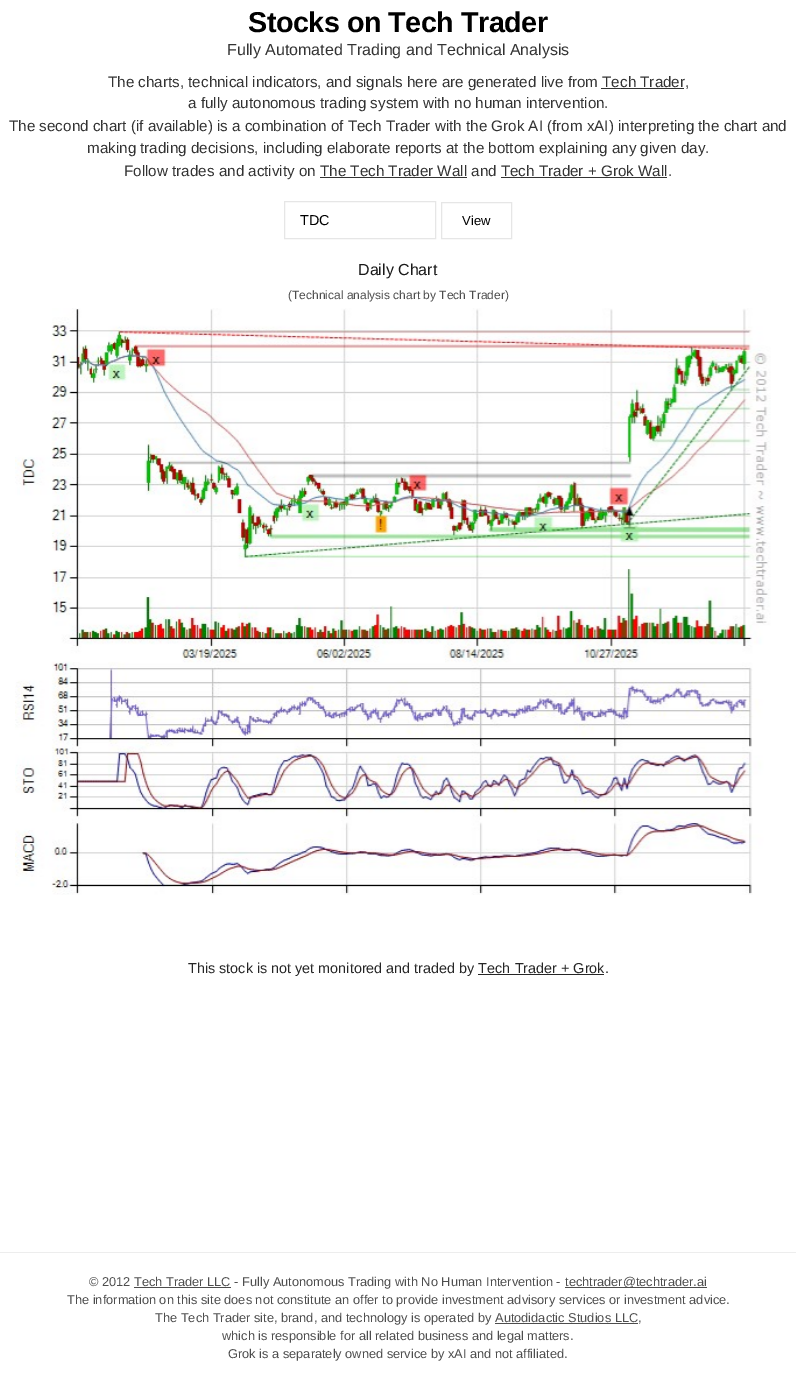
%!PS
<< /PageSize [796 1383] >> setpagedevice
/mt/moveto load def
/co { dup -16 bitshift 255 div exch dup -8 bitshift 255 and 255 div exch 255 and 255 div setrgbcolor } def
/fn { [ exch dup neg 0 0 3 -1 roll 0 0 ] selectfont } def
/tx { co fn moveto show } def
/bx { co rectfill } def
/im { 5 dict begin { /h /w /y /x /name } { exch def } forall
  gsave x y translate w h scale
  w h 8 [w 0 0 h 0 0] name (r) file false 3 colorimage grestore end } def
0 1383 translate 1 -1 scale
4 setmiterlimit
0 0 796 1383 16#FFFFFF bx
601 88 83 1 16#333333 bx
320 177 147 1 16#333333 bx
501 177 166 1 16#333333 bx
16#E6E6E6 co
284.5 201.5 151 37 rectstroke
441.5 202.5 70 36 rectstroke
(media/1.raw) 15 308 756 587 im
478 974 126 1 16#262626 bx
0 1252 796 1 16#EDEDED bx
565 1287 142 1 16#4D4D4D bx
134 1287 97 1 16#4D4D4D bx
495 1323 143 1 16#4D4D4D bx
/LiberationSans-Bold 28.75 fn
16#000000 co
248 32 mt -.5 0 (Stocks on Tech Trader) ashow
(Fully Automated Trading and Technical Analysis) 227 55 /LiberationSans-Regular 16 16#333333 tx
(The charts, technical indicators, and signals here are generated live from Tech Trader,) 108 87 /LiberationSans-Regular 15.2 16#333333 tx
(a fully autonomous trading system with no human intervention.) 188 108 /LiberationSans-Regular 15.2 16#333333 tx
(The second chart \(if available\) is a combination of Tech Trader with the Grok AI \(from xAI\) interpreting the chart and) 9 131 /LiberationSans-Regular 15.2 16#333333 tx
(making trading decisions, including elaborate reports at the bottom explaining any given day.) 87 153 /LiberationSans-Regular 15.2 16#333333 tx
(Follow trades and activity on The Tech Trader Wall and Tech Trader + Grok Wall.) 124 176 /LiberationSans-Regular 15.2 16#333333 tx
(TDC) 300 225 /LiberationSans-Regular 14.4 16#000000 tx
(View) 462 225 /LiberationSans-Regular 13 16#000000 tx
(Daily Chart) 358 275 /LiberationSans-Regular 16 16#1A1A1A tx
(\(Technical analysis chart by Tech Trader\)) 288 299 /LiberationSans-Regular 12 16#4D4D4D tx
(This stock is not yet monitored and traded by Tech Trader + Grok.) 188 973 /LiberationSans-Regular 14.4 16#262626 tx
(© 2012 Tech Trader LLC - Fully Autonomous Trading with No Human Intervention -) 89 1286 /LiberationSans-Regular 12.8 16#4D4D4D tx
(techtrader@techtrader.ai) 565 1286 /LiberationSans-Regular 12.8 16#4D4D4D tx
(The information on this site does not constitute an offer to provide investment advisory services or investment advice.) 67 1304 /LiberationSans-Regular 12.8 16#4D4D4D tx
(The Tech Trader site, brand, and technology is operated by Autodidactic Studios LLC,) 155 1322 /LiberationSans-Regular 12.8 16#4D4D4D tx
(which is responsible for all related business and legal matters.) 222 1340 /LiberationSans-Regular 12.8 16#4D4D4D tx
(Grok is a separately owned service by xAI and not affiliated.) 228 1358 /LiberationSans-Regular 12.8 16#4D4D4D tx
showpage
